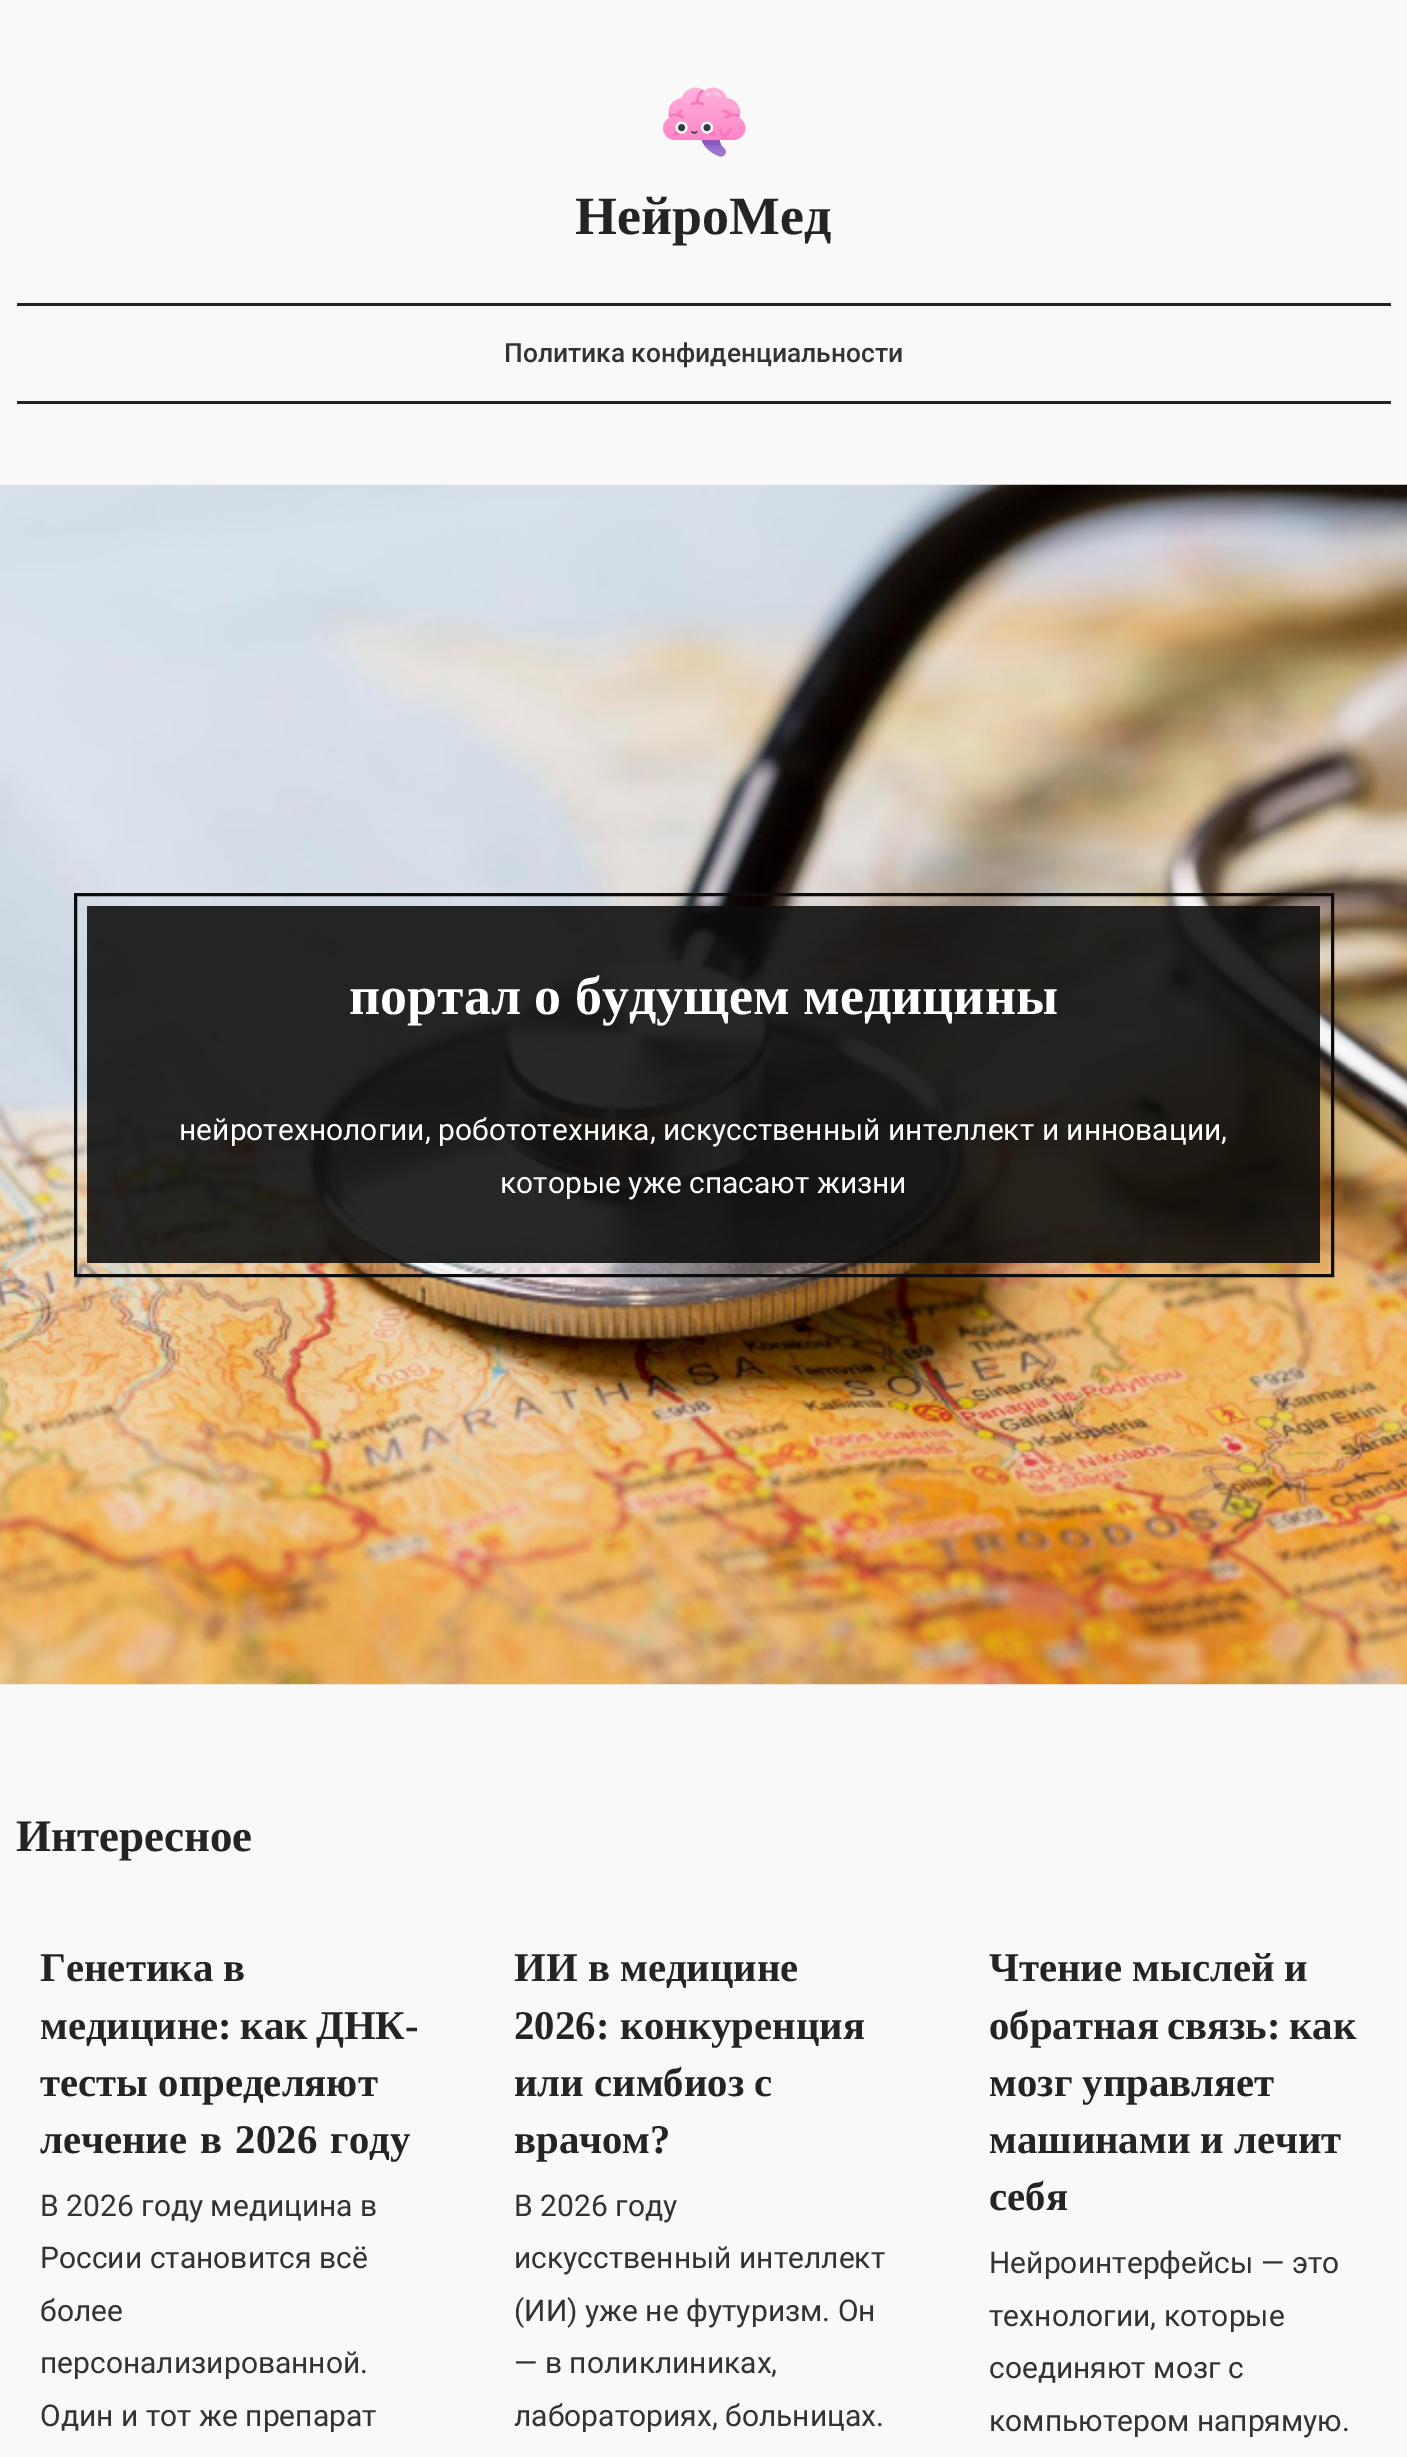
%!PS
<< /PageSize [1407 2457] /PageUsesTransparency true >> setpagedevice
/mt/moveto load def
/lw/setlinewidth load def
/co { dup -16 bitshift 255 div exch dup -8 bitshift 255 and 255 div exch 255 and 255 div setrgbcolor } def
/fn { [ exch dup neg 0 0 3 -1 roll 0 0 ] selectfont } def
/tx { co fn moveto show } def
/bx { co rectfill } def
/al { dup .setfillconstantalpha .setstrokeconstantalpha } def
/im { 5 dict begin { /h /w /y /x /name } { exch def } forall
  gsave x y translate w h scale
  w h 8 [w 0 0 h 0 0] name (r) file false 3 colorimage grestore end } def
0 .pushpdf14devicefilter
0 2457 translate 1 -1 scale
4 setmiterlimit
0 0 1407 2457 16#F9F9F9 bx
(media/1.raw) 663 87 83 70 im
17 303 1374 3 16#242424 bx
17 401 1374 3 16#242424 bx
(media/2.raw) 0 484 1407 1201 im
16#0D0D0D co
3 lw
75.5 894.5 1257 381 rectstroke
0.89 al
87 906 1233 357 16#0D0D0D bx
1 al
(НейроМед) 575 234 /LiberationSerif-Bold 54 16#242424 tx
(Политика конфиденциальности) 504 362 /Roboto-Medium 26.4 16#333333 tx
(портал о будущем медицины) 349 1014 /LiberationSerif-Bold 54 16#FFFFFF tx
(нейротехнологии, робототехника, искусственный интеллект и инновации,) 179 1140 /Roboto-Regular 30 16#FFFFFF tx
(которые уже спасают жизни) 500 1193 /Roboto-Regular 30 16#FFFFFF tx
(Интересное) 16 1851 /LiberationSerif-Bold 45 16#242424 tx
(Генетика в) 40 1981 /LiberationSerif-Bold 40.75 16#242424 tx
40 2039 mt -2 0 32 (медицине: как ДНК-) widthshow
(тесты определяют) 40 2096 /LiberationSerif-Bold 40.75 16#242424 tx
40 2153 mt 3 0 32 (лечение в 2026 году) widthshow
(В 2026 году медицина в) 40 2216 /Roboto-Regular 30 16#333333 tx
(России становится всё) 40 2268 /Roboto-Regular 30 16#333333 tx
(более) 40 2321 /Roboto-Regular 30 16#333333 tx
(персонализированной.) 40 2373 /Roboto-Regular 30 16#333333 tx
(Один и тот же препарат) 40 2426 /Roboto-Regular 30 16#333333 tx
(ИИ в медицине) 514 1981 /LiberationSerif-Bold 40.75 16#242424 tx
514 2039 mt 1 0 32 (2026: конкуренция) widthshow
(или симбиоз с) 514 2096 /LiberationSerif-Bold 40.75 16#242424 tx
(врачом?) 514 2153 /LiberationSerif-Bold 40.75 16#242424 tx
(В 2026 году) 514 2216 /Roboto-Regular 30 16#333333 tx
(искусственный интеллект) 514 2268 /Roboto-Regular 30 16#333333 tx
(\(ИИ\) уже не футуризм. Он) 514 2321 /Roboto-Regular 30 16#333333 tx
(— в поликлиниках,) 514 2373 /Roboto-Regular 30 16#333333 tx
(лабораториях, больницах.) 514 2426 /Roboto-Regular 30 16#333333 tx
(Чтение мыслей и) 989 1981 /LiberationSerif-Bold 40.75 16#242424 tx
989 2039 mt -2 0 32 (обратная связь: как) widthshow
(мозг управляет) 989 2096 /LiberationSerif-Bold 40.75 16#242424 tx
(машинами и лечит) 989 2153 /LiberationSerif-Bold 40.75 16#242424 tx
(себя) 989 2210 /LiberationSerif-Bold 40.75 16#242424 tx
(Нейроинтерфейсы — это) 989 2273 /Roboto-Regular 30 16#333333 tx
(технологии, которые) 989 2326 /Roboto-Regular 30 16#333333 tx
(соединяют мозг с) 989 2378 /Roboto-Regular 30 16#333333 tx
(компьютером напрямую.) 989 2431 /Roboto-Regular 30 16#333333 tx
.poppdf14devicefilter showpage
